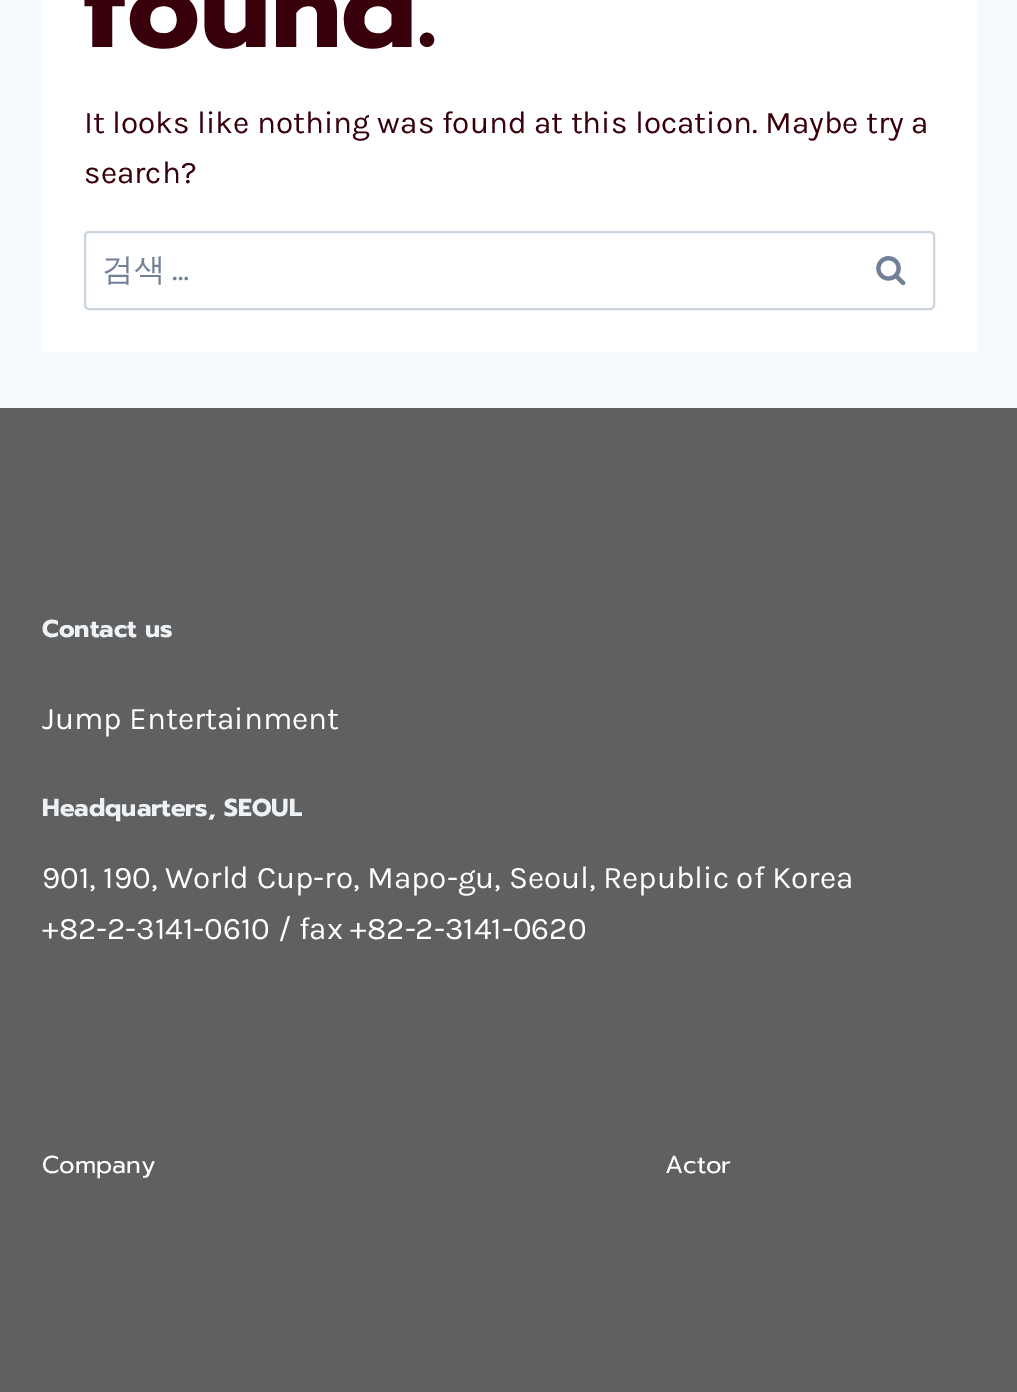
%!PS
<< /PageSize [1017 1392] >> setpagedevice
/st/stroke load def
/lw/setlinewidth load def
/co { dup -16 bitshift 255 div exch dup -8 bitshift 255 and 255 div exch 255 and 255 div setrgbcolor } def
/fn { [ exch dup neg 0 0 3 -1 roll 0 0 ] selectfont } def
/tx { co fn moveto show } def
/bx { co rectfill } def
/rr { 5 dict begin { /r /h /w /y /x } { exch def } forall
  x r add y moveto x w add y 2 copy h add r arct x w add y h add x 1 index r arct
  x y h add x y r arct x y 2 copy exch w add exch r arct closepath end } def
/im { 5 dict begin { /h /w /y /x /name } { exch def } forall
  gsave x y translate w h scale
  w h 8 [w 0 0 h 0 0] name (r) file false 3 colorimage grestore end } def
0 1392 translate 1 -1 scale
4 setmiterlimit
0 0 1017 1392 16#F7FAFC bx
42 0 935 352 16#FFFFFF bx
16#CBD5E0 co
2 lw
85 232 849 77 4 rr st
(media/1.raw) 876 256 30 29 im
0 408 1017 984 16#606060 bx
(found.) 84 47 /Prompt-Bold 114 16#37000A tx
(It looks like nothing was found at this location. Maybe try a) 84 133 /Karla-Regular 31.5 16#37000A tx
(search?) 84 183 /Karla-Regular 31.5 16#37000A tx
(검색) 102 280 /WenQuanYiZenHei-Medium 31.5 16#718096 tx
(…) 172 280 /Karla-Regular 31.5 16#718096 tx
(Contact us) 42 637 /Prompt-Bold 24.5 16#EDF2F7 tx
(Jump Entertainment) 42 729 /Karla-Regular 31.5 16#FFFFFF tx
(Headquarters, SEOUL) 42 816 /Prompt-Bold 24.5 16#EDF2F7 tx
(901, 190, World Cup-ro, Mapo-gu, Seoul, Republic of Korea) 42 888 /Karla-Regular 31.5 16#FFFFFF tx
(+82-2-3141-0610 / fax +82-2-3141-0620) 42 939 /Karla-Regular 31.5 16#FFFFFF tx
(Company) 42 1173 /Prompt-Regular 24.5 16#FFFFFF tx
(Actor) 665 1173 /Prompt-Regular 24.5 16#FFFFFF tx
showpage
